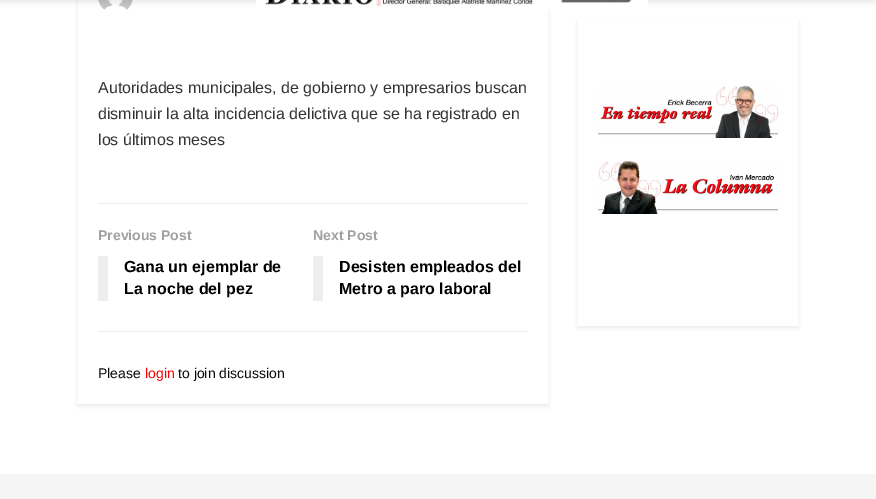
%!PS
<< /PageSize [876 499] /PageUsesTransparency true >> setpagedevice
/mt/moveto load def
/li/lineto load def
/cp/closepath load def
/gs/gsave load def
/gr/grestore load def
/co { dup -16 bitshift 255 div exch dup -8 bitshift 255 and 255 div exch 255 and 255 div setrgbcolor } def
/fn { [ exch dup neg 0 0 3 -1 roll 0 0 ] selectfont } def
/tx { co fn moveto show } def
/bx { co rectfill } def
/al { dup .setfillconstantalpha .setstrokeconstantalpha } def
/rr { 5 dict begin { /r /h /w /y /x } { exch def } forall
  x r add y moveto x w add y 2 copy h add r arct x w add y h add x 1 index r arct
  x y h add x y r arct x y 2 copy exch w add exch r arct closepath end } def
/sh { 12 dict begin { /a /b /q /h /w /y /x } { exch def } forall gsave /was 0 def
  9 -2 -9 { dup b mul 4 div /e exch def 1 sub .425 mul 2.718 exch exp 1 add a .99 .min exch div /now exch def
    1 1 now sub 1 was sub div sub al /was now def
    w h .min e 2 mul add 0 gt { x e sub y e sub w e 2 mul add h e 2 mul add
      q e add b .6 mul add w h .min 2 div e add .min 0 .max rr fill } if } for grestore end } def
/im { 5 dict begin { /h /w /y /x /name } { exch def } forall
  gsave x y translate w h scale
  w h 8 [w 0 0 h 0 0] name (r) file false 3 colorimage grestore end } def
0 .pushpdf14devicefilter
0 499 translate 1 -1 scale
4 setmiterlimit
0 0 876 499 16#FFFFFF bx
gs
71 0 mt 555 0 li 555 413 li 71 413 li cp 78 -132 mt 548 -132 li 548 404 li 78 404 li cp eoclip newpath
16#000000 co
78 -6 470 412 0 2 .08 sh
gr
(media/2.raw) 98 0 35 10 im
16#000000 co
0 -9 876 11 0 3 .1 sh
(media/1.raw) 256 0 392 10 im
98 203 430 1 16#EEEEEE bx
98 331 430 1 16#EEEEEE bx
98 256 10 45 16#EEEEEE bx
313 256 10 45 16#EEEEEE bx
gs
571 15 mt 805 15 li 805 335 li 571 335 li cp 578 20 mt 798 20 li 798 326 li 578 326 li cp eoclip newpath
16#000000 co
578 22 220 306 0 2 .08 sh
gr
(media/3.raw) 598 85 180 53 im
(media/4.raw) 598 160 180 54 im
0 474 876 25 16#F5F5F5 bx
(Autoridades municipales, de gobierno y empresarios buscan) 98 93 /LiberationSans-Regular 16 16#333333 tx
(disminuir la alta incidencia delictiva que se ha registrado en) 98 119 /LiberationSans-Regular 16 16#333333 tx
(los últimos meses) 98 145 /LiberationSans-Regular 16 16#333333 tx
(Previous Post) 98 240 /LiberationSans-Bold 14 16#A0A0A0 tx
(Gana un ejemplar de) 124 272 /LiberationSans-Bold 16 16#000000 tx
(La noche del pez) 124 294 /LiberationSans-Bold 16 16#000000 tx
(Next Post) 313 240 /LiberationSans-Bold 14 16#A0A0A0 tx
(Desisten empleados del) 339 272 /LiberationSans-Bold 16 16#000000 tx
(Metro a paro laboral) 339 294 /LiberationSans-Bold 16 16#000000 tx
(Please) 98 378 /LiberationSans-Regular 14 16#0A0808 tx
(login) 145 378 /LiberationSans-Regular 14 16#F90000 tx
(to join discussion) 178 378 /LiberationSans-Regular 14 16#0A0808 tx
.poppdf14devicefilter showpage
